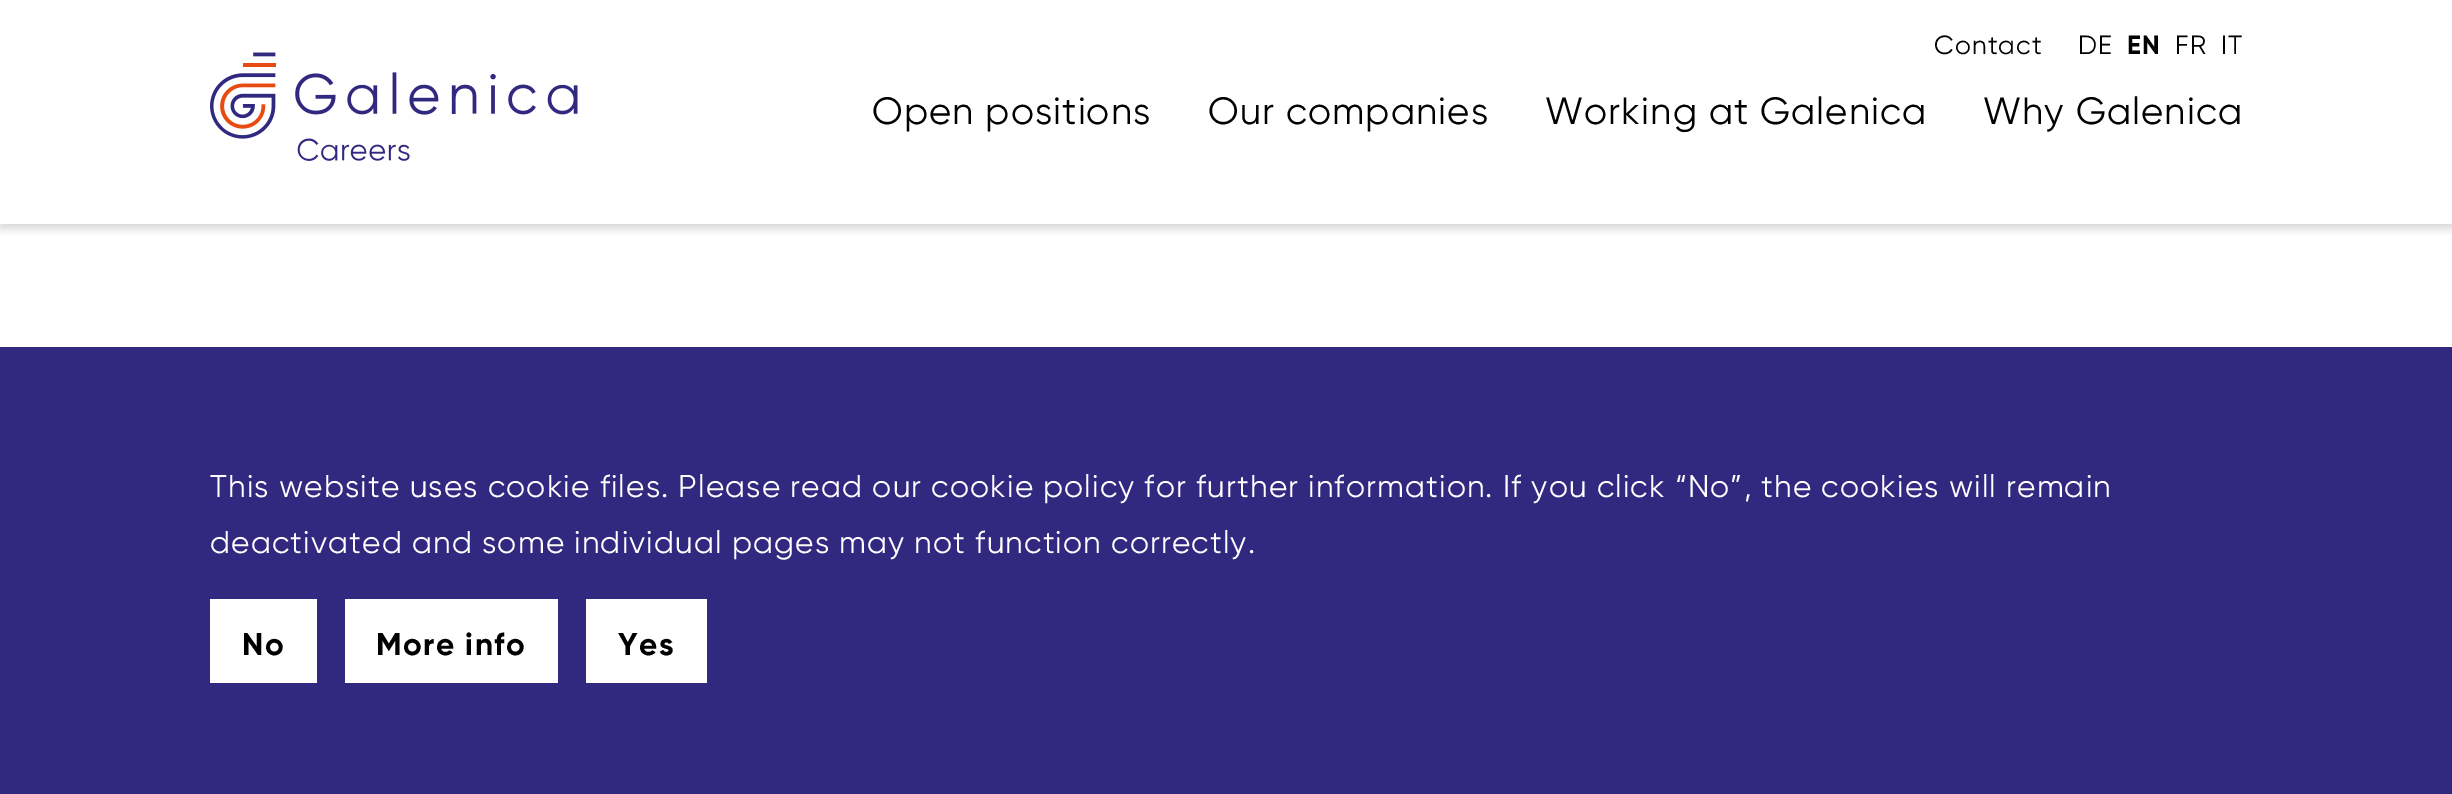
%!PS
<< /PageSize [2452 794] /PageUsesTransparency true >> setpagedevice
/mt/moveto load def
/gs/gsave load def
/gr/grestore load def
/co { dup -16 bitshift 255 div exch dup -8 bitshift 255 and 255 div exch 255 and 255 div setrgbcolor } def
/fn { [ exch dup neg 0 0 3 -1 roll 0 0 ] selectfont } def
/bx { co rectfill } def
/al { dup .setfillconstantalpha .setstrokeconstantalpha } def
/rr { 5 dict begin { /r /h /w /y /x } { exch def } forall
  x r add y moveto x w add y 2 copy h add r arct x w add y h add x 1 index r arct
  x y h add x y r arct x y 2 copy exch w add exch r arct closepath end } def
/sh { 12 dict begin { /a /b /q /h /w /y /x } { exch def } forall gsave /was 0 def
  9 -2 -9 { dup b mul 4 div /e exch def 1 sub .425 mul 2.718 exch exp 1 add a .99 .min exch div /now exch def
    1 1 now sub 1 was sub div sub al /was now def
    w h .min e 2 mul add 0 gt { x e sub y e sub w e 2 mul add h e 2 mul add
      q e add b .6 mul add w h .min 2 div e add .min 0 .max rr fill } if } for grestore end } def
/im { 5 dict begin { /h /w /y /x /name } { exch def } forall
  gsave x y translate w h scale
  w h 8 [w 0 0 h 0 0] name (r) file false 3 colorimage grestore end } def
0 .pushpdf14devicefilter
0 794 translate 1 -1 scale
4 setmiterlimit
0 0 2452 794 16#FFFFFF bx
(media/1.raw) 210 52 368 109 im
gs
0 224 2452 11 rectclip
16#000000 co
0 5 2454 224 0 5 .16 sh
gr
0 347 2452 447 16#312880 bx
210 599 107 84 16#FFFFFF bx
345 599 213 84 16#FFFFFF bx
586 599 121 84 16#FFFFFF bx
/Gilroy-Regular 26.25 fn
16#000000 co
1934 54 mt 1.14 0 (Contact) ashow
2078 54 mt 1.14 0 (DE) ashow
/Gilroy-Bold 26.25 fn
2127 54 mt 1.14 0 (EN) ashow
/Gilroy-Regular 26.25 fn
2175 54 mt 1.14 0 (FR) ashow
2221 54 mt 1.14 0 (IT) ashow
/Gilroy-Regular 38 fn
872 124 mt 1.14 0 (Open positions) ashow
1208 124 mt 1.14 0 (Our companies) ashow
1545 124 mt 1.14 0 (Working at Galenica) ashow
1983 124 mt 1.14 0 (Why Galenica) ashow
/Gilroy-Regular 31.5 fn
16#FFFFFF co
210 497 mt 1.14 0 (This website uses cookie files. Please read our cookie policy for further information. If you click “No”, the cookies will remain) ashow
210 553 mt 1.14 0 (deactivated and some individual pages may not function correctly.) ashow
/Gilroy-Bold 31.5 fn
16#000000 co
242 655 mt 1.5 0 (No) ashow
376 655 mt 1.5 0 (More info) ashow
618 655 mt 1.5 0 (Yes) ashow
.poppdf14devicefilter showpage
